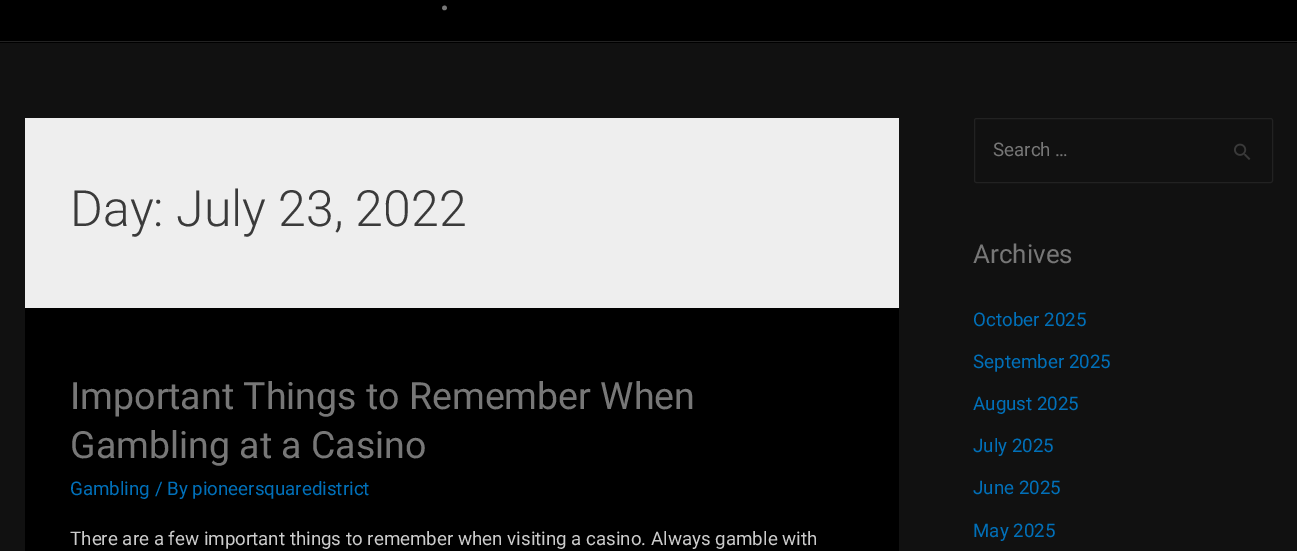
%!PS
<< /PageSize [1297 551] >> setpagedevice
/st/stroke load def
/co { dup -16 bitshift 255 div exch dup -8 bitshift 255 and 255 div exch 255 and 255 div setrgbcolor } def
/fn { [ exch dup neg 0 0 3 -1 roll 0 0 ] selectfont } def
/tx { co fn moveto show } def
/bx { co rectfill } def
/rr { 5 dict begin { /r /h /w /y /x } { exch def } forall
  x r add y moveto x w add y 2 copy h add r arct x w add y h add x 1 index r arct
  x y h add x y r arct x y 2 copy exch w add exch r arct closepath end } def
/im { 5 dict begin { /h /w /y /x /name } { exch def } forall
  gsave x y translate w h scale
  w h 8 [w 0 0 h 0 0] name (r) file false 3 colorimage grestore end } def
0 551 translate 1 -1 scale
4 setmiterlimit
0 0 1297 551 16#111111 bx
0 0 1297 43 16#000000 bx
0 41 1297 1 16#222222 bx
25 118 874 190 16#EEEEEE bx
25 308 874 243 16#000000 bx
16#222222 co
974.5 118.5 298 64 2 rr st
(media/1.raw) 1234 143 17 17 im
(.) 439 10 /Roboto-Regular 44 16#777777 tx
(Day: July 23, 2022) 70 226 /Roboto-Light 50 16#3A3A3A tx
(Important Things to Remember When) 70 409 /Roboto-Regular 37.5 16#777777 tx
(Gambling at a Casino) 70 458 /Roboto-Regular 37.5 16#777777 tx
(Gambling / By pioneersquaredistrict) 70 495 /Roboto-Regular 18.75 16#0170B9 tx
(There are a few important things to remember when visiting a casino. Always gamble with) 70 545 /Roboto-Regular 18.75 16#CCCCCC tx
(Search …) 993 156 /Roboto-Regular 18.75 16#777777 tx
(Archives) 973 263 /Roboto-Regular 26 16#777777 tx
(October 2025) 973 326 /Roboto-Regular 18.75 16#0170B9 tx
(September 2025) 973 368 /Roboto-Regular 18.75 16#0170B9 tx
(August 2025) 973 410 /Roboto-Regular 18.75 16#0170B9 tx
(July 2025) 973 452 /Roboto-Regular 18.75 16#0170B9 tx
(June 2025) 973 494 /Roboto-Regular 18.75 16#0170B9 tx
(May 2025) 973 537 /Roboto-Regular 18.75 16#0170B9 tx
showpage
